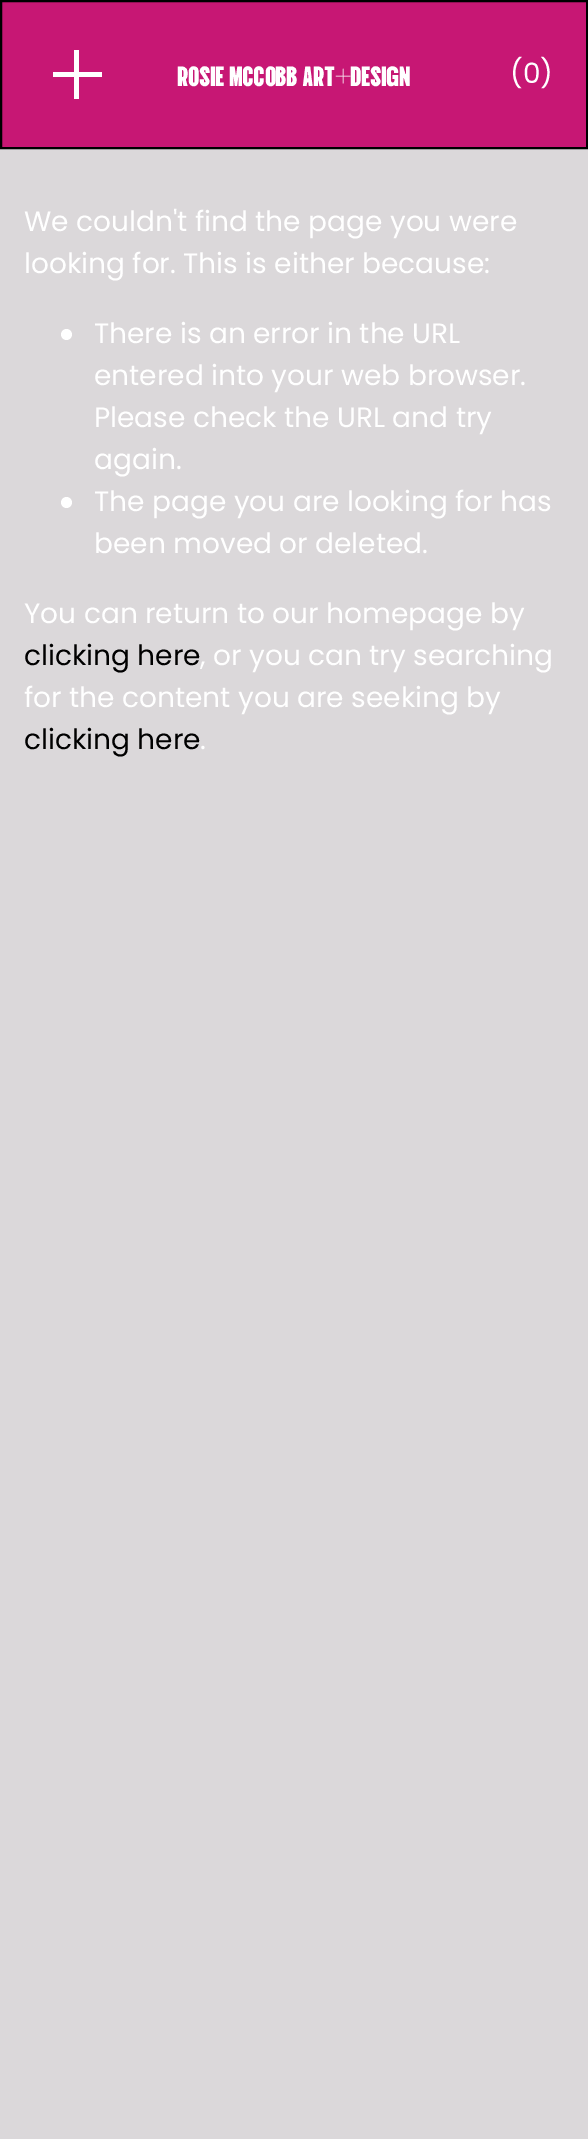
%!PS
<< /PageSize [588 2139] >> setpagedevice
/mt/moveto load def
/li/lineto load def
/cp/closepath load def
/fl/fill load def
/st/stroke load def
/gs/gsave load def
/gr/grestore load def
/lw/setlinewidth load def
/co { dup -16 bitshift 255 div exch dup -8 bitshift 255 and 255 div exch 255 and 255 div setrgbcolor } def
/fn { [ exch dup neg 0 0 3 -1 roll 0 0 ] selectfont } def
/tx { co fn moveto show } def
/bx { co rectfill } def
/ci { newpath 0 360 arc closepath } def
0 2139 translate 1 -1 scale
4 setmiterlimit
0 0 588 2139 16#DBD8DA bx
16#C71774 co
1 1 mt 587 1 li 587 148 li 1 148 li cp gs fl gr
16#000000 co
2 lw
st
53 72 49 5 16#FFFFFF bx
74 50 5 49 16#FFFFFF bx
66.5 334.5 5.5 ci fl
66.5 502.5 5.5 ci fl
/VinaSans-Regular 28 fn
177 86 mt -.6 0 (ROSIE MCCOBB ART+DESIGN) ashow
(\(0\)) 510 83 /Poppins-Regular 28 16#FFFFFF tx
(We couldn't find the page you were) 24 231 /Poppins-Regular 28 16#FFFFFF tx
(looking for. This is either because:) 24 273 /Poppins-Regular 28 16#FFFFFF tx
(There is an error in the URL) 94 343 /Poppins-Regular 28 16#FFFFFF tx
(entered into your web browser.) 94 385 /Poppins-Regular 28 16#FFFFFF tx
(Please check the URL and try) 94 427 /Poppins-Regular 28 16#FFFFFF tx
(again.) 94 469 /Poppins-Regular 28 16#FFFFFF tx
(The page you are looking for has) 94 511 /Poppins-Regular 28 16#FFFFFF tx
(been moved or deleted.) 94 553 /Poppins-Regular 28 16#FFFFFF tx
(You can return to our homepage by) 24 623 /Poppins-Regular 28 16#FFFFFF tx
(clicking here) 24 665 /Poppins-Regular 28 16#000000 tx
(, or you can try searching) 200 665 /Poppins-Regular 28 16#FFFFFF tx
(for the content you are seeking by) 24 707 /Poppins-Regular 28 16#FFFFFF tx
(clicking here) 24 749 /Poppins-Regular 28 16#000000 tx
(.) 200 749 /Poppins-Regular 28 16#FFFFFF tx
showpage
